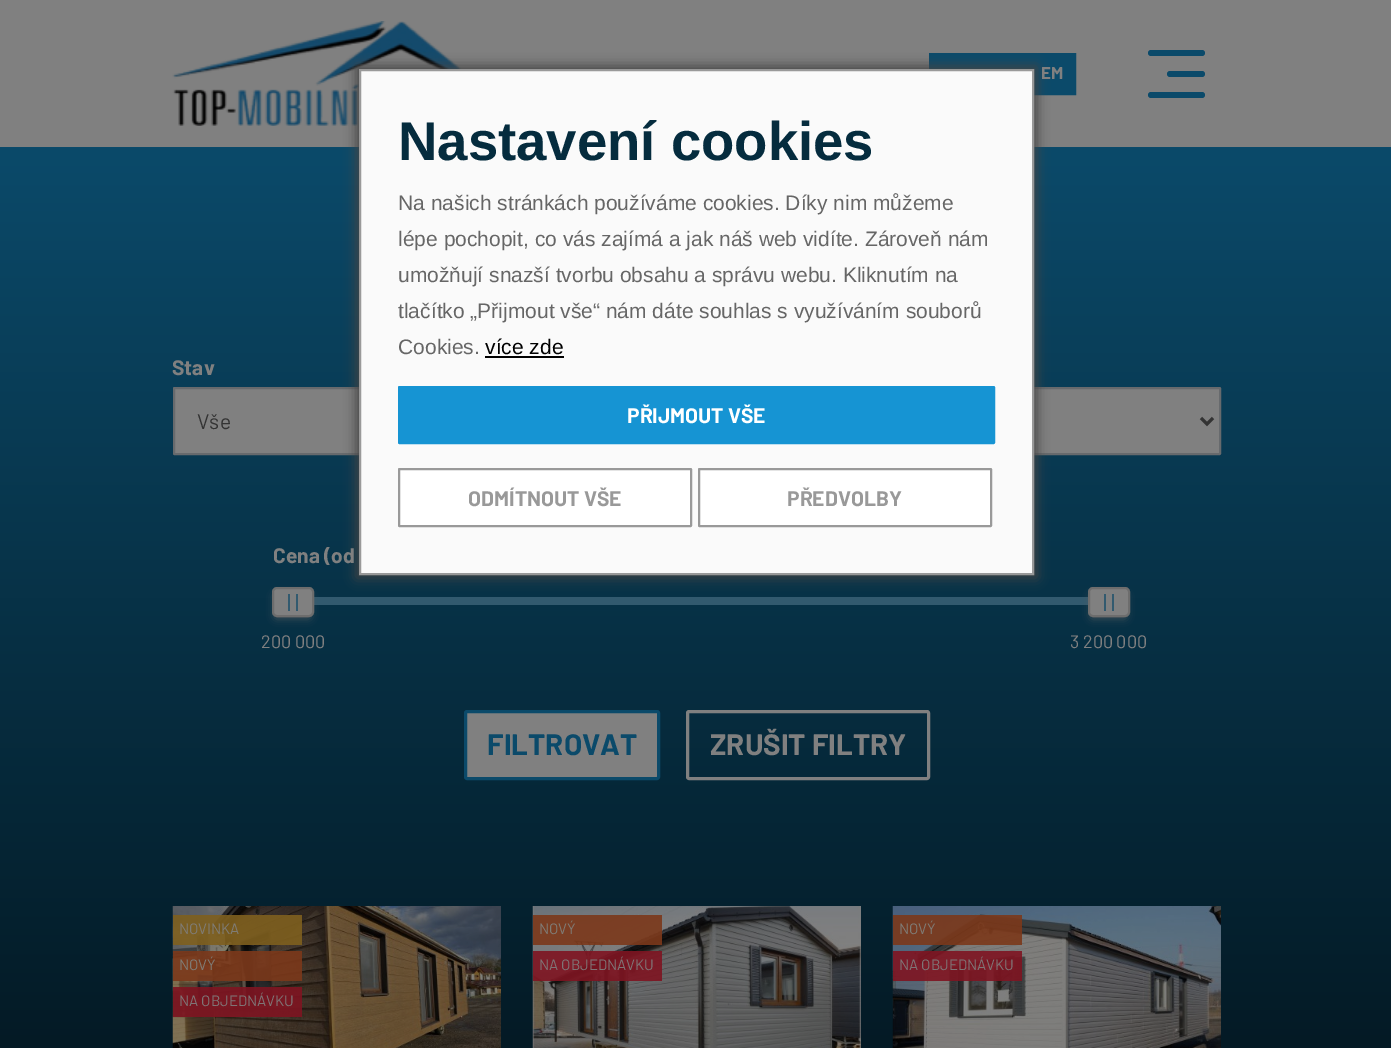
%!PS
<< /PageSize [1391 1048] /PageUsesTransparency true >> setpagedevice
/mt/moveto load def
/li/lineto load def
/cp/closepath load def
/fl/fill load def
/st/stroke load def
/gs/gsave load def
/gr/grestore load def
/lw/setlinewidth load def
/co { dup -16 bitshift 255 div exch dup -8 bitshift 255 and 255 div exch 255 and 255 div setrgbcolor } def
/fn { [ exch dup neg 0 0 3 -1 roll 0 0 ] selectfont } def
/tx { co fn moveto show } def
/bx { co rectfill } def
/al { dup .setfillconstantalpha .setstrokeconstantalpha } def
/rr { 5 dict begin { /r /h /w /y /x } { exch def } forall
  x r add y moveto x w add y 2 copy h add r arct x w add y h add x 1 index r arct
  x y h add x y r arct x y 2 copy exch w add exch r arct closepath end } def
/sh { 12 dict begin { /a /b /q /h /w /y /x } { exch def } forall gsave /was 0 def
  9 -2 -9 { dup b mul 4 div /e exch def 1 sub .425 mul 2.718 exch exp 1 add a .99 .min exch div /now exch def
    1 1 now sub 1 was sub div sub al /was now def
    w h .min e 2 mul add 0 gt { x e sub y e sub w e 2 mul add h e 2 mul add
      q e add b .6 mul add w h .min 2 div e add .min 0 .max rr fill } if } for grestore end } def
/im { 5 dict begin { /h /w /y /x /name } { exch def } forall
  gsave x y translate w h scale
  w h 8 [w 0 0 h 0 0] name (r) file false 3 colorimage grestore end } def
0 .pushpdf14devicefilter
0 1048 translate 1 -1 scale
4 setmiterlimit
0 0 1391 1048 16#808080 bx
(media/1.raw) 172 21 290 105 im
16#0B4A6A co
930.5 54.5 mt 1074.5 54.5 li 1074.5 93.5 li 930.5 93.5 li cp gs fl gr
3 lw
st
1148 50 57 6 3 rr fl
1167 71 38 6 3 rr fl
1148 92 57 6 3 rr fl
gs 0 147 mt 1391 147 li 1391 1048 li 0 1048 li cp clip newpath
<< /ShadingType 2 /ColorSpace /DeviceRGB /Coords [.8 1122 .8 147] /Extend [true true] /Function << /FunctionType 2 /Domain [0 1] /C0 [.012 .086 .122] /C1 [.043 .29 .416] /N 1 >> >> shfill gr
175 389 184 64 16#808080 bx
16#676A6D co
2 lw
174 388 326 66 .5 rr st
1034 389 185 64 16#808080 bx
16#676A6D co
894 388 326 66 .5 rr st
16#444444 co
356 66 681 512 0 6 1 sh
16#FAFAFA co
360 70 mt 1033 70 li 1033 574 li 360 574 li cp gs fl gr
16#999999 co
st
485 356 79 2 16#000000 bx
16#1694D3 co
399 387 595 56 .5 rr gs fl gr
st
16#FFFFFF co
399 469 292 57 .5 rr gs fl gr
16#999999 co
st
16#FFFFFF co
699 469 292 57 .5 rr gs fl gr
16#999999 co
st
16#333333 co
3 lw
1201 418 mt 1207 424 li 1213 418 li st
314 597 774 8 16#325A6F bx
16#5E5E5E co
276 596 33 21 0 4.5 1 sh
16#808080 co
273 588 40 28 4 rr gs fl gr
16#6D6D6D co
2 lw
st
288 594 2 17 16#325A6F bx
296 594 2 17 16#325A6F bx
16#5E5E5E co
1092 596 33 21 0 4.5 1 sh
16#808080 co
1089 588 40 28 4 rr gs fl gr
16#6D6D6D co
st
1104 594 2 17 16#325A6F bx
1112 594 2 17 16#325A6F bx
16#808080 co
465.5 711.5 193 67 1.5 rr gs fl gr
16#0B4A6A co
3 lw
st
16#808080 co
687.5 711.5 241 67 1.5 rr st
(media/2.raw) 172 906 329 142 im
0.9 al
173 915 129 30 16#7E5F1E bx
173 951 129 30 16#7B381A bx
173 987 129 30 16#7E1421 bx
1 al
(media/3.raw) 532 906 329 142 im
0.9 al
533 915 129 30 16#7B381A bx
533 951 129 30 16#7E1421 bx
1 al
(media/4.raw) 892 906 329 142 im
0.9 al
893 915 129 30 16#7B381A bx
893 951 129 30 16#7E1421 bx
1 al
(EM) 1041 79 /Barlow-Bold 17 16#808080 tx
(Nastavení cookies) 398 160 /LiberationSans-Bold 54.5 16#052C3E tx
(Na našich stránkách používáme cookies. Díky nim můžeme) 398 210 /LiberationSans-Regular 21 16#666666 tx
(lépe pochopit, co vás zajímá a jak náš web vidíte. Zároveň nám) 398 246 /LiberationSans-Regular 21 16#666666 tx
(umožňují snazší tvorbu obsahu a správu webu. Kliknutím na) 398 282 /LiberationSans-Regular 21 16#666666 tx
(tlačítko „Přijmout vše“ nám dáte souhlas s využíváním souborů) 398 318 /LiberationSans-Regular 21 16#666666 tx
(Cookies.) 398 354 /LiberationSans-Regular 21 16#666666 tx
(více zde) 485 354 /LiberationSans-Regular 21 16#000000 tx
(PŘIJMOUT VŠE) 627 423 /Barlow-Bold 21 16#FFFFFF tx
(ODMÍTNOUT VŠE) 468 506 /Barlow-Bold 21 16#999999 tx
(PŘEDVOLBY) 787 506 /Barlow-Bold 21 16#999999 tx
(Stav) 172 375 /Barlow-Bold 21 16#808080 tx
(Vše) 197 429 /Barlow-Regular 21 16#333333 tx
(Cena \(od) 273 563 /Barlow-Bold 21 16#808080 tx
(200 000) 261 648 /Barlow-Regular 18 16#808080 tx
(3 200 000) 1070 648 /Barlow-Regular 18 16#808080 tx
(FILTROVAT) 487 755 /Barlow-Bold 29.5 16#0B4A6A tx
(ZRUŠIT FILTRY) 710 755 /Barlow-Bold 29.5 16#808080 tx
(NOVINKA) 179 934 /Barlow-Regular 15 16#7F7C76 tx
(NOVÝ) 179 970 /Barlow-Regular 15 16#7F7C76 tx
(NA OBJEDNÁVKU) 179 1006 /Barlow-Regular 15 16#7F7576 tx
(NOVÝ) 539 934 /Barlow-Regular 15 16#7F7C76 tx
(NA OBJEDNÁVKU) 539 970 /Barlow-Regular 15 16#7F7576 tx
(NOVÝ) 899 934 /Barlow-Regular 15 16#7F7C76 tx
(NA OBJEDNÁVKU) 899 970 /Barlow-Regular 15 16#7F7576 tx
.poppdf14devicefilter showpage
